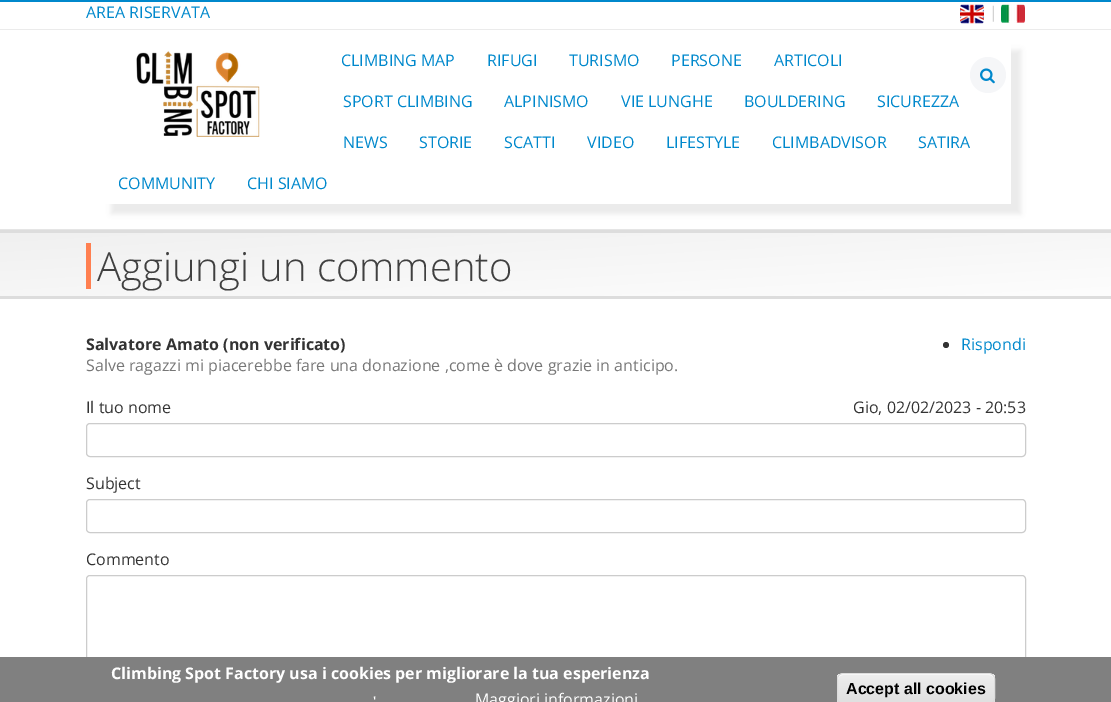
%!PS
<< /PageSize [1111 702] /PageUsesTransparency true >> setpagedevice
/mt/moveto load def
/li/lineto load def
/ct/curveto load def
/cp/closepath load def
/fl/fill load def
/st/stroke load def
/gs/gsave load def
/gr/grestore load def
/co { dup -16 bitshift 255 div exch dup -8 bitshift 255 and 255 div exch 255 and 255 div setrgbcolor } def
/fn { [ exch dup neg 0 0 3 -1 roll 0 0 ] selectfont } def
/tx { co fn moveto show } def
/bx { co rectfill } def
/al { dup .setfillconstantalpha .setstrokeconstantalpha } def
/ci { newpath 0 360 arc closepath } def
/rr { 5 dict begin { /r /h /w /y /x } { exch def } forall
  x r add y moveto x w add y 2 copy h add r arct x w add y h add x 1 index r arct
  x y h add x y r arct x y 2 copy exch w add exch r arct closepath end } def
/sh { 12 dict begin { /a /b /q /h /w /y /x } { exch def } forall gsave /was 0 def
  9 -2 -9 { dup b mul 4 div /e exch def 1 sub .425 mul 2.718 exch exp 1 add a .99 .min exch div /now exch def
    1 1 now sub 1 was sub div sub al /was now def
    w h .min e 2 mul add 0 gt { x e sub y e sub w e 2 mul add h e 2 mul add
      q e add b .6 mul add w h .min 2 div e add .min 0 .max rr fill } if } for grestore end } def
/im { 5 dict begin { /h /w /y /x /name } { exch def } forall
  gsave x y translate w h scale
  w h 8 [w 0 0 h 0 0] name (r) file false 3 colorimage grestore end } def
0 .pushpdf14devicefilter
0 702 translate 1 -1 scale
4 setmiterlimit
0 0 1111 702 16#FFFFFF bx
0 229 1111 1 16#E5E5E5 bx
0 0 1111 2 16#0088CC bx
0 29 1111 1 16#EBEBEB bx
(media/1.raw) 960 4 24 20 im
(media/2.raw) 1001 4 24 19 im
gs
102 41 mt 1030 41 li 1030 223 li 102 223 li cp 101 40 mt 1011 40 li 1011 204 li 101 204 li cp eoclip newpath
16#000000 co
111 50 910 164 0 2.5 .07 sh
gr
(media/3.raw) 136 51 124 86 im
16#F5F6F8 co
988 75 18 ci fl
(media/4.raw) 980 68 15 16 im
gs 0 233 mt 1111 233 li 1111 296 li 0 296 li cp clip newpath
<< /ShadingType 2 /ColorSpace /DeviceRGB /Coords [552 202 559 327] /Extend [true true] /Function << /FunctionType 2 /Domain [0 1] /C0 [.941 .941 .941] /C1 [.992 .992 .992] /N 1 >> >> shfill gr
0 230 1111 3 16#DDDDDD bx
0 296 1111 3 16#DDDDDD bx
86 243 5 46 16#FF7F50 bx
16#333333 co
946 345 3 ci fl
16#CCCCCC co
86.5 423.5 939 33 3.5 rr st
86.5 499.5 939 33 3.5 rr st
86.5 575.5 939 110 3.5 rr st
0 657 1111 45 16#808080 bx
gs
837 673 158 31 6 rr clip newpath
gs 837 674 mt 995 674 li 995 702 li 837 702 li cp clip newpath
<< /ShadingType 2 /ColorSpace /DeviceRGB /Coords [916 674 916 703] /Extend [true true] /Function << /FunctionType 3 /Domain [0 1] /Functions [<< /FunctionType 2 /Domain [0 1] /C0 [.929 .929 .929] /C1 [.929 .929 .929] /N 1 >> << /FunctionType 2 /Domain [0 1] /C0 [.929 .929 .929] /C1 [.875 .875 .875] /N 1 >>] /Bounds [.05] /Encode [0 1 0 1] >> >> shfill gr
gr
16#FFFFFF co
843 675 mt 989 675 li 992 675 994 677 994 680 ct 994 679 li 994 676 992 674 989 674 ct 843 674 li 840 674 838 676 838 679 ct 838 680 li 838 677 840 675 843 675 ct cp fl
16#DCDCDC co
837.5 673.5 157 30 5.5 rr st
(AREA RISERVATA) 86 18 /OpenSans-Regular 16 16#0088CC tx
(|) 989 18 /OpenSans-Regular 16 16#D3D3D3 tx
(CLIMBING MAP) 341 66 /OpenSans-Regular 16 16#0088CC tx
(RIFUGI) 487 66 /OpenSans-Regular 16 16#0088CC tx
(TURISMO) 569 66 /OpenSans-Regular 16 16#0088CC tx
(PERSONE) 671 66 /OpenSans-Regular 16 16#0088CC tx
(ARTICOLI) 774 66 /OpenSans-Regular 16 16#0088CC tx
(SPORT CLIMBING) 343 107 /OpenSans-Regular 16 16#0088CC tx
(ALPINISMO) 504 107 /OpenSans-Regular 16 16#0088CC tx
(VIE LUNGHE) 621 107 /OpenSans-Regular 16 16#0088CC tx
(BOULDERING) 744 107 /OpenSans-Regular 16 16#0088CC tx
(SICUREZZA) 877 107 /OpenSans-Regular 16 16#0088CC tx
(NEWS) 343 148 /OpenSans-Regular 16 16#0088CC tx
(STORIE) 419 148 /OpenSans-Regular 16 16#0088CC tx
(SCATTI) 504 148 /OpenSans-Regular 16 16#0088CC tx
(VIDEO) 587 148 /OpenSans-Regular 16 16#0088CC tx
(LIFESTYLE) 666 148 /OpenSans-Regular 16 16#0088CC tx
(CLIMBADVISOR) 772 148 /OpenSans-Regular 16 16#0088CC tx
(SATIRA) 918 148 /OpenSans-Regular 16 16#0088CC tx
(COMMUNITY) 118 189 /OpenSans-Regular 16 16#0088CC tx
(CHI SIAMO) 247 189 /OpenSans-Regular 16 16#0088CC tx
(Aggiungi un commento) 97 281 /OpenSans-Light 40 16#404040 tx
(Salvatore Amato \(non verificato\)) 86 350 /OpenSans-Bold 16 16#333333 tx
(Rispondi) 961 350 /OpenSans-Regular 16 16#0088CC tx
(Salve ragazzi mi piacerebbe fare una donazione ,come è dove grazie in anticipo.) 86 371 /OpenSans-Regular 16 16#777777 tx
(Gio, 02/02/2023 - 20:53) 853 413 /OpenSans-Regular 16 16#333333 tx
(Il tuo nome) 86 413 /OpenSans-Regular 16 16#333333 tx
(Subject) 86 489 /OpenSans-Regular 16 16#333333 tx
(Commento) 86 565 /OpenSans-Regular 16 16#333333 tx
(Climbing Spot Factory usa i cookies per migliorare la tua esperienza) 111 679 /OpenSans-Bold 16 16#FFFFFF tx
(') 373 705 /OpenSans-Bold 12 16#FFFFFF tx
(Maggiori informazioni) 475 705 /OpenSans-Regular 16 16#FFFFFF tx
(Accept all cookies) 846 694 /LiberationSans-Bold 16 16#000000 tx
.poppdf14devicefilter showpage
